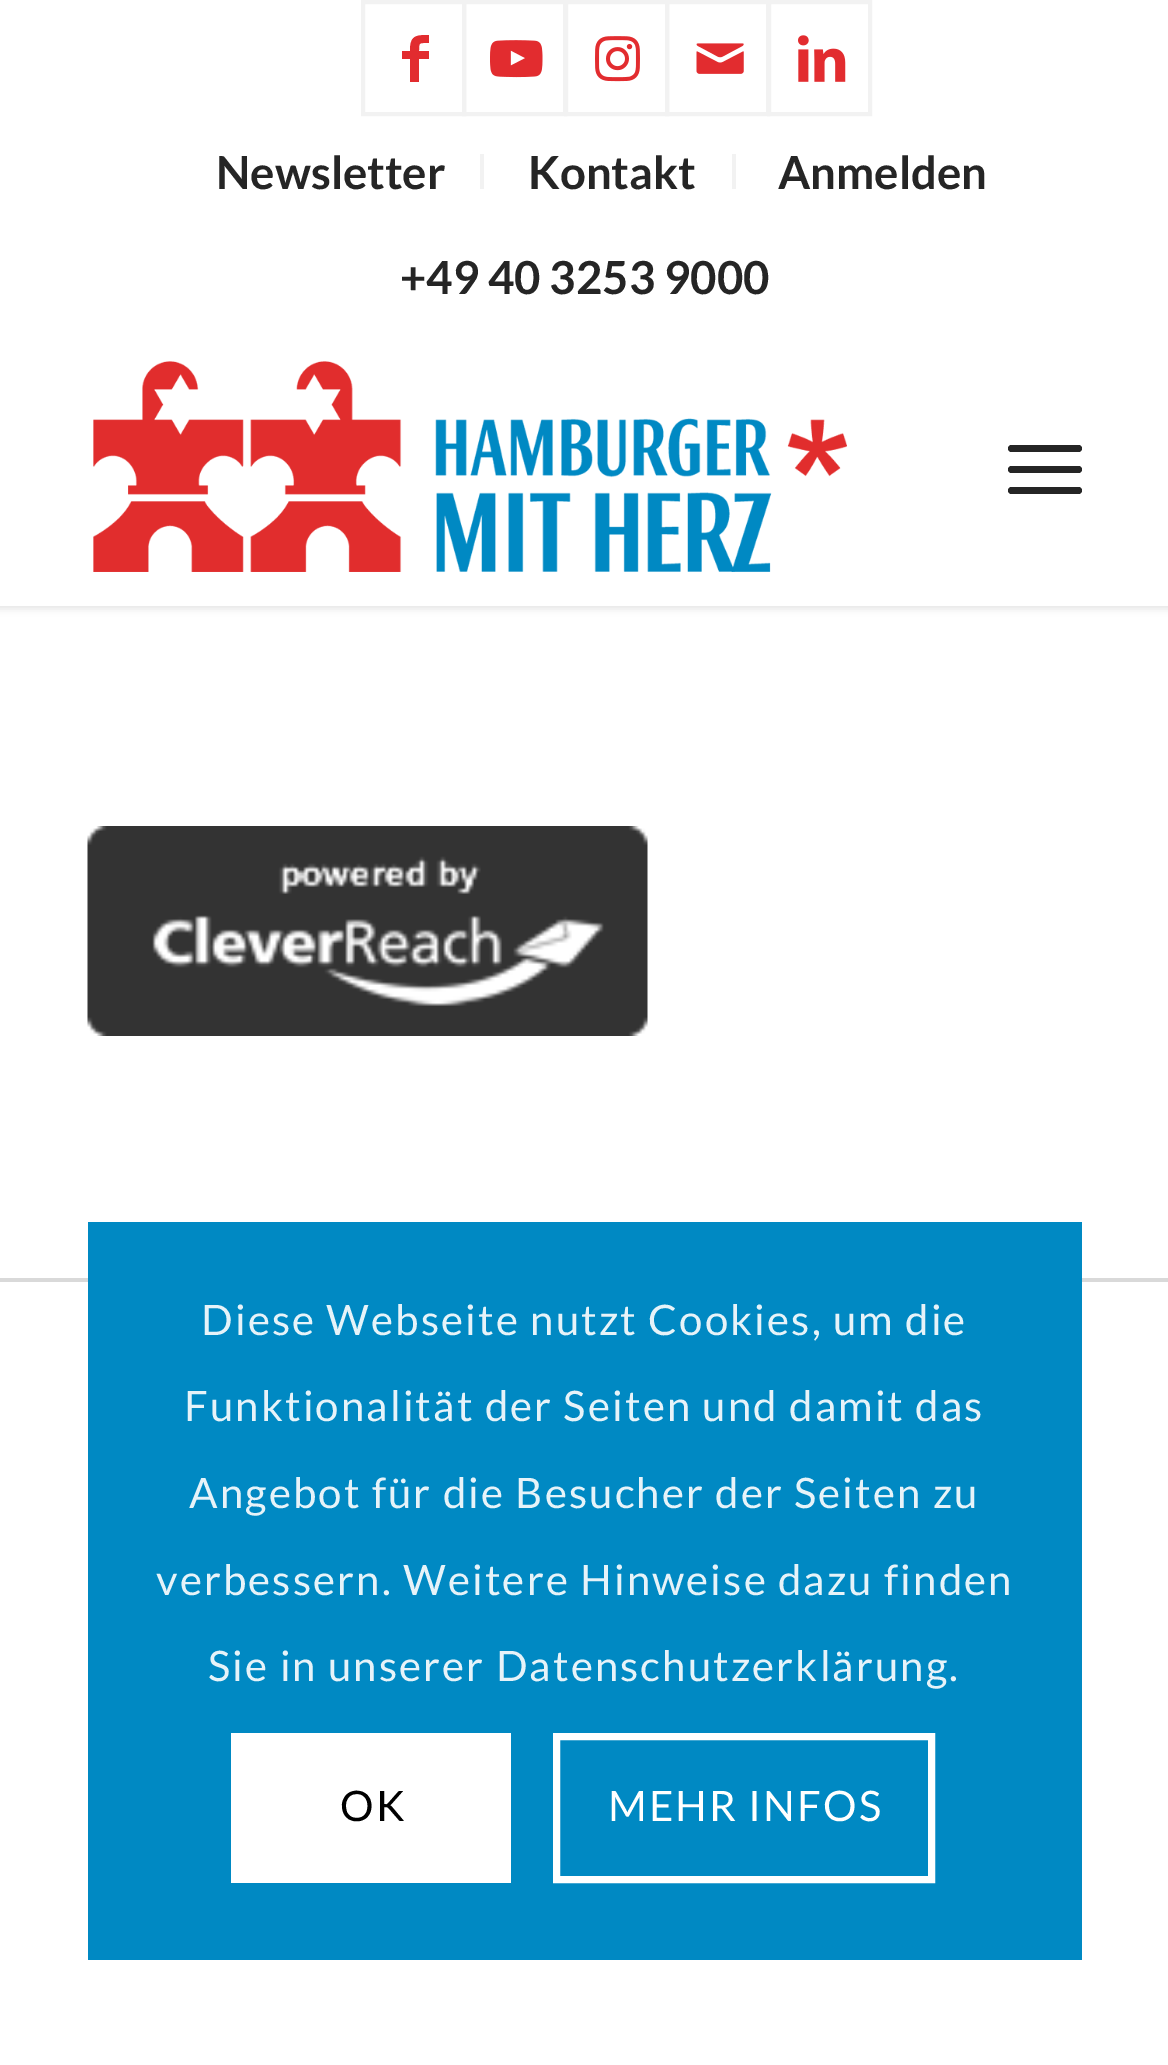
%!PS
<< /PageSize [1168 2065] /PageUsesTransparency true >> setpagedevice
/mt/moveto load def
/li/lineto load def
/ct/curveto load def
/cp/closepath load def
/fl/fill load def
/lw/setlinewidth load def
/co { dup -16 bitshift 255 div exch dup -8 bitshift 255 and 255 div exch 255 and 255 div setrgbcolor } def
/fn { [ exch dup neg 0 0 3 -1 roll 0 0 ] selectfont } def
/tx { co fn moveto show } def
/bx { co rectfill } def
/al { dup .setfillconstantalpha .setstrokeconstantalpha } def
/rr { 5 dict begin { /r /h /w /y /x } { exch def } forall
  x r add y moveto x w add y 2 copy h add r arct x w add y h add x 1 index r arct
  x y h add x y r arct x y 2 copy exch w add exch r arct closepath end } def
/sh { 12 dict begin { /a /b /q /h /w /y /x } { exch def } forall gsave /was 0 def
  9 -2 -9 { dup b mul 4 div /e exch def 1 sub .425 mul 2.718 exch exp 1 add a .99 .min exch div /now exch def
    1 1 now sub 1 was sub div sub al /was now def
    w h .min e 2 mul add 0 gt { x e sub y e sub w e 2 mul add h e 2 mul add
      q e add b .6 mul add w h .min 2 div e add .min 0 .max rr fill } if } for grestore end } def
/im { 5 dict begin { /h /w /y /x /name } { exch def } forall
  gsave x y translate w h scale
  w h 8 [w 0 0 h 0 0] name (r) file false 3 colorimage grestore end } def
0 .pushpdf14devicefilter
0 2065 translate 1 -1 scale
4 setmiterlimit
0 0 1168 2065 16#FFFFFF bx
16#000000 co
-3 -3 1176 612 0 3.5 .1 sh
0 0 1168 606 16#FFFFFF bx
16#F2F2F2 co
4 lw
363 2 101 112 rectstroke
16#E22C2F co
429 43 mt 419 43 419 42 419 51 ct 429 51 li 429 59 li 419 59 li 419 82 li 410 82 li 410 59 li 402 59 li 402 51 li 410 51 li 410 36 415 35 429 35 ct cp fl
16#F2F2F2 co
464 2 101 112 rectstroke
(media/1.raw) 490 40 53 38 im
566 2 101 112 rectstroke
(media/2.raw) 595 36 45 46 im
667 2 101 112 rectstroke
(media/3.raw) 696 43 48 31 im
769 2 101 112 rectstroke
(media/4.raw) 798 35 48 47 im
480 154 4 35 16#F2F2F2 bx
732 154 4 35 16#F2F2F2 bx
(media/5.raw) 93 361 754 211 im
16#252525 co
1008 466 74 7 3.5 rr fl
1008 445 74 7 3.5 rr fl
1008 487 74 7 3.5 rr fl
(media/6.raw) 87 826 561 210 im
0 1278 1168 4 16#D9D9D9 bx
88 1222 994 738 16#0089C3 bx
231 1733 280 150 16#FFFFFF bx
7 lw
556.5 1736.5 375 143 rectstroke
(Newsletter) 216 189 /Lato-Bold 45.5 16#252525 tx
(Kontakt) 528 189 /Lato-Bold 45.5 16#252525 tx
(Anmelden) 778 189 /Lato-Bold 45.5 16#252525 tx
(+49 40 3253 9000) 400 294 /Lato-Bold 45.5 16#252525 tx
/Lato-Regular 42 fn
16#E6F3F9 co
201 1335 mt 2.1 0 (Diese Webseite nutzt Cookies, um die) ashow
184 1421 mt 2.1 0 (Funktionalität der Seiten und damit das) ashow
189 1508 mt 2.1 0 (Angebot für die Besucher der Seiten zu) ashow
156 1595 mt 2.1 0 (verbessern. Weitere Hinweise dazu finden) ashow
208 1681 mt 2.1 0 (Sie in unserer Datenschutzerklärung.) ashow
16#000000 co
340 1821 mt 2.1 0 (OK) ashow
16#FFFFFF co
608 1821 mt 2.1 0 (MEHR INFOS) ashow
.poppdf14devicefilter showpage
